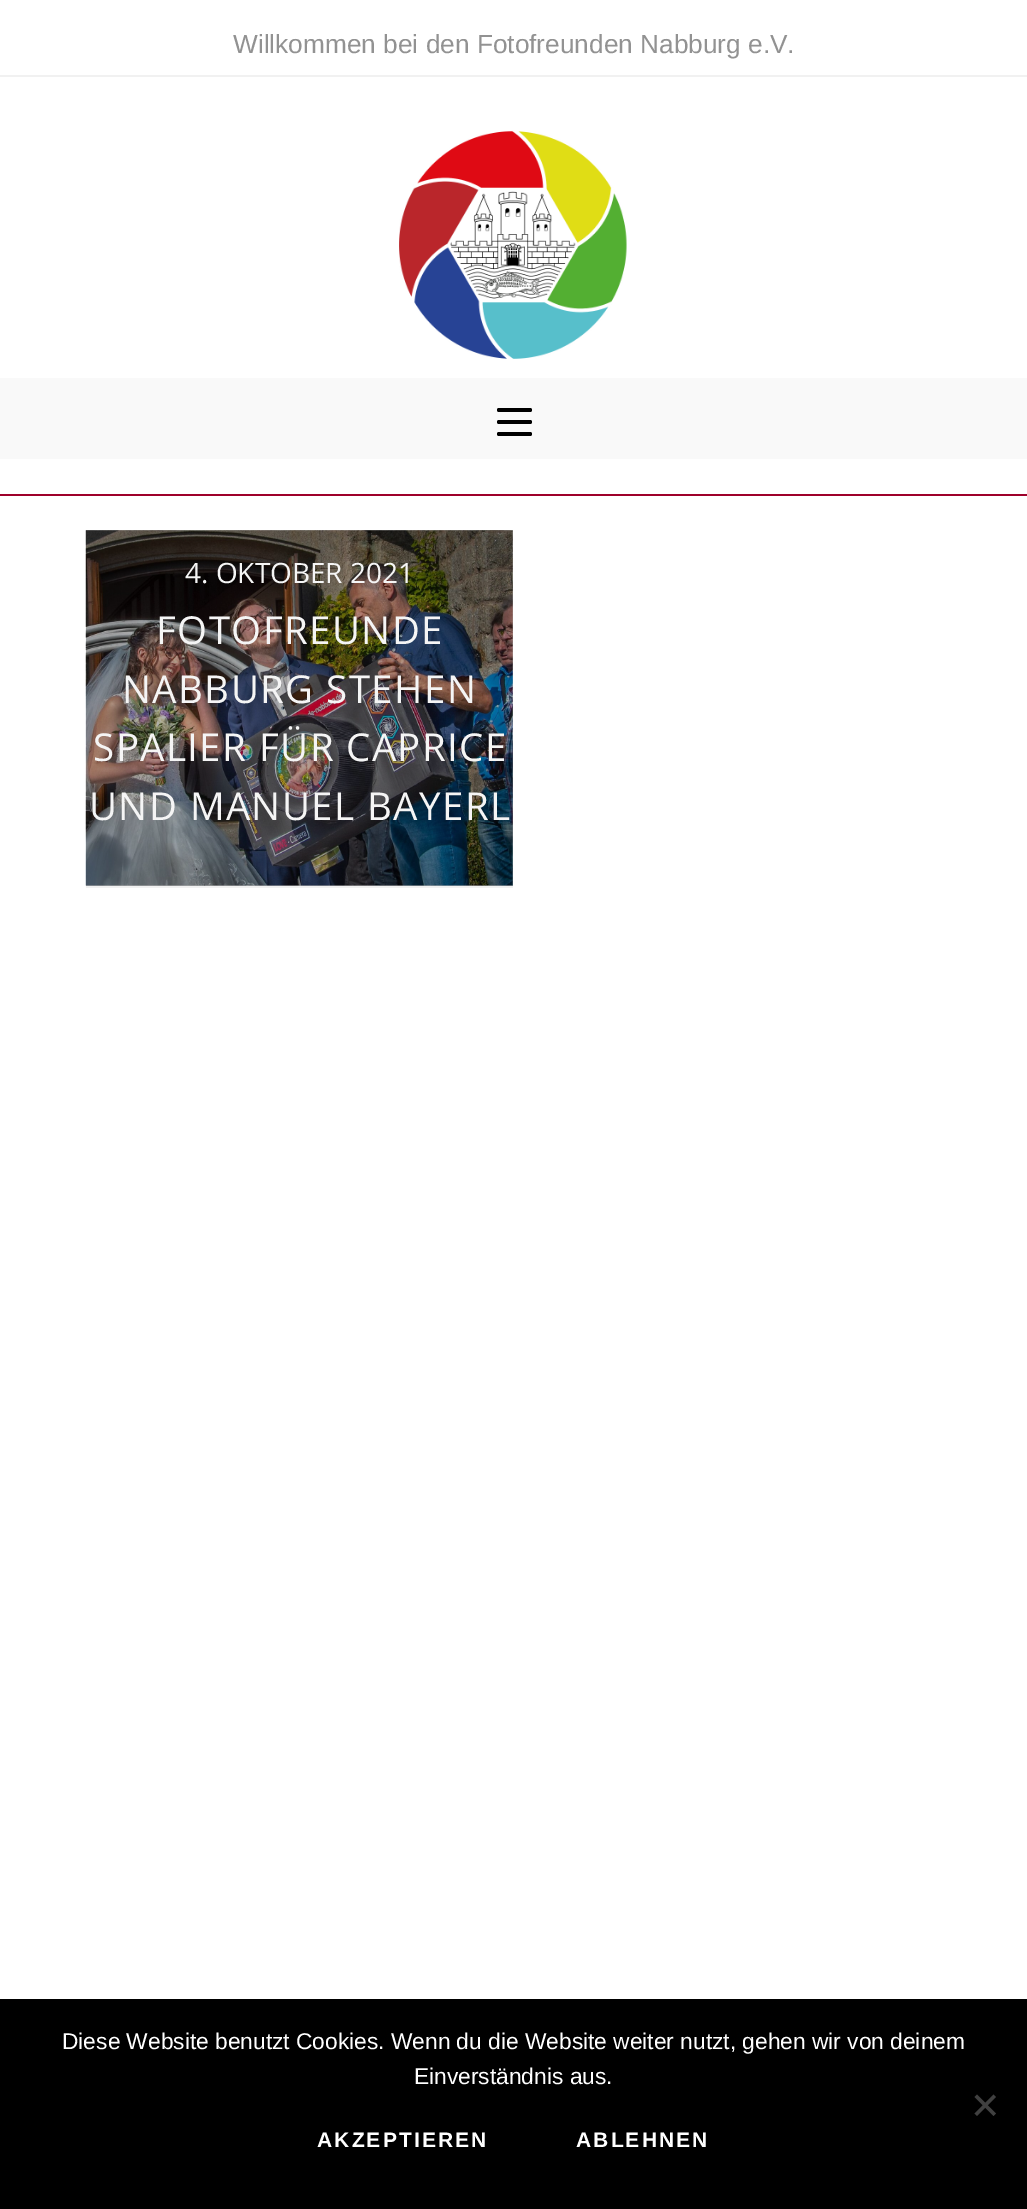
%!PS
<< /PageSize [1027 2209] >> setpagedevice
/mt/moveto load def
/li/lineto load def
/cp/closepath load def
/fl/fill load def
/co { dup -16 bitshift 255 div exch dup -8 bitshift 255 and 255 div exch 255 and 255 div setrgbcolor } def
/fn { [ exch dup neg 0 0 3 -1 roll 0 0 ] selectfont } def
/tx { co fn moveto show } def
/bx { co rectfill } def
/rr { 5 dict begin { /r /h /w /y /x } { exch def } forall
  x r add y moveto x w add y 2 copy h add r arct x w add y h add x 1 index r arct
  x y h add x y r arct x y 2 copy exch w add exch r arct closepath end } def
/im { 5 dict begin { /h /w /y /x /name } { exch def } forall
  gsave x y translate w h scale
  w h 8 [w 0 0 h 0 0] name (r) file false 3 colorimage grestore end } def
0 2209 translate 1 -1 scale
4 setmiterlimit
0 0 1027 2209 16#FFFFFF bx
86 530 427 356 16#B3B3B3 bx
0 75 1027 2 16#F1F1F1 bx
0 494 1027 2 16#9E002A bx
(media/1.raw) 399 131 228 228 im
0 378 1027 81 16#F9F9F9 bx
16#000000 co
497 420 35 4 2 rr fl
497 408 35 4 2 rr fl
497 432 35 4 2 rr fl
86 886 427 2 16#F1F1F1 bx
(media/2.raw) 85 530 428 356 im
0 1999 1027 210 16#000000 bx
16#404040 co
993.5 2094.5 mt 996 2097 li 977 2116 li 974.5 2113.5 li cp fl
974.5 2097 mt 977 2094.5 li 996 2113.5 li 993.5 2116 li cp fl
(Willkommen bei den Fotofreunden Nabburg e.V.) 233 53 /LiberationSans-Regular 26.25 16#929292 tx
(4. OKTOBER 2021) 185 583 /OpenSans-Regular 28 16#F5F5F5 tx
/OpenSans-Regular 38.5 fn
156 644 mt 1.4 0 (FOTOFREUNDE) ashow
122 703 mt 1.4 0 (NABBURG STEHEN) ashow
93 761 mt 1.4 0 (SPALIER FÜR CAPRICE) ashow
89 820 mt 1.4 0 (UND MANUEL BAYERL) ashow
(Diese Website benutzt Cookies. Wenn du die Website weiter nutzt, gehen wir von deinem) 62 2049 /LiberationSans-Regular 22.75 16#FFFFFF tx
(Einverständnis aus.) 414 2084 /LiberationSans-Regular 22.75 16#FFFFFF tx
/LiberationSans-Bold 21 fn
317 2147 mt 2.1 0 (AKZEPTIEREN) ashow
576 2147 mt 2.1 0 (ABLEHNEN) ashow
showpage
